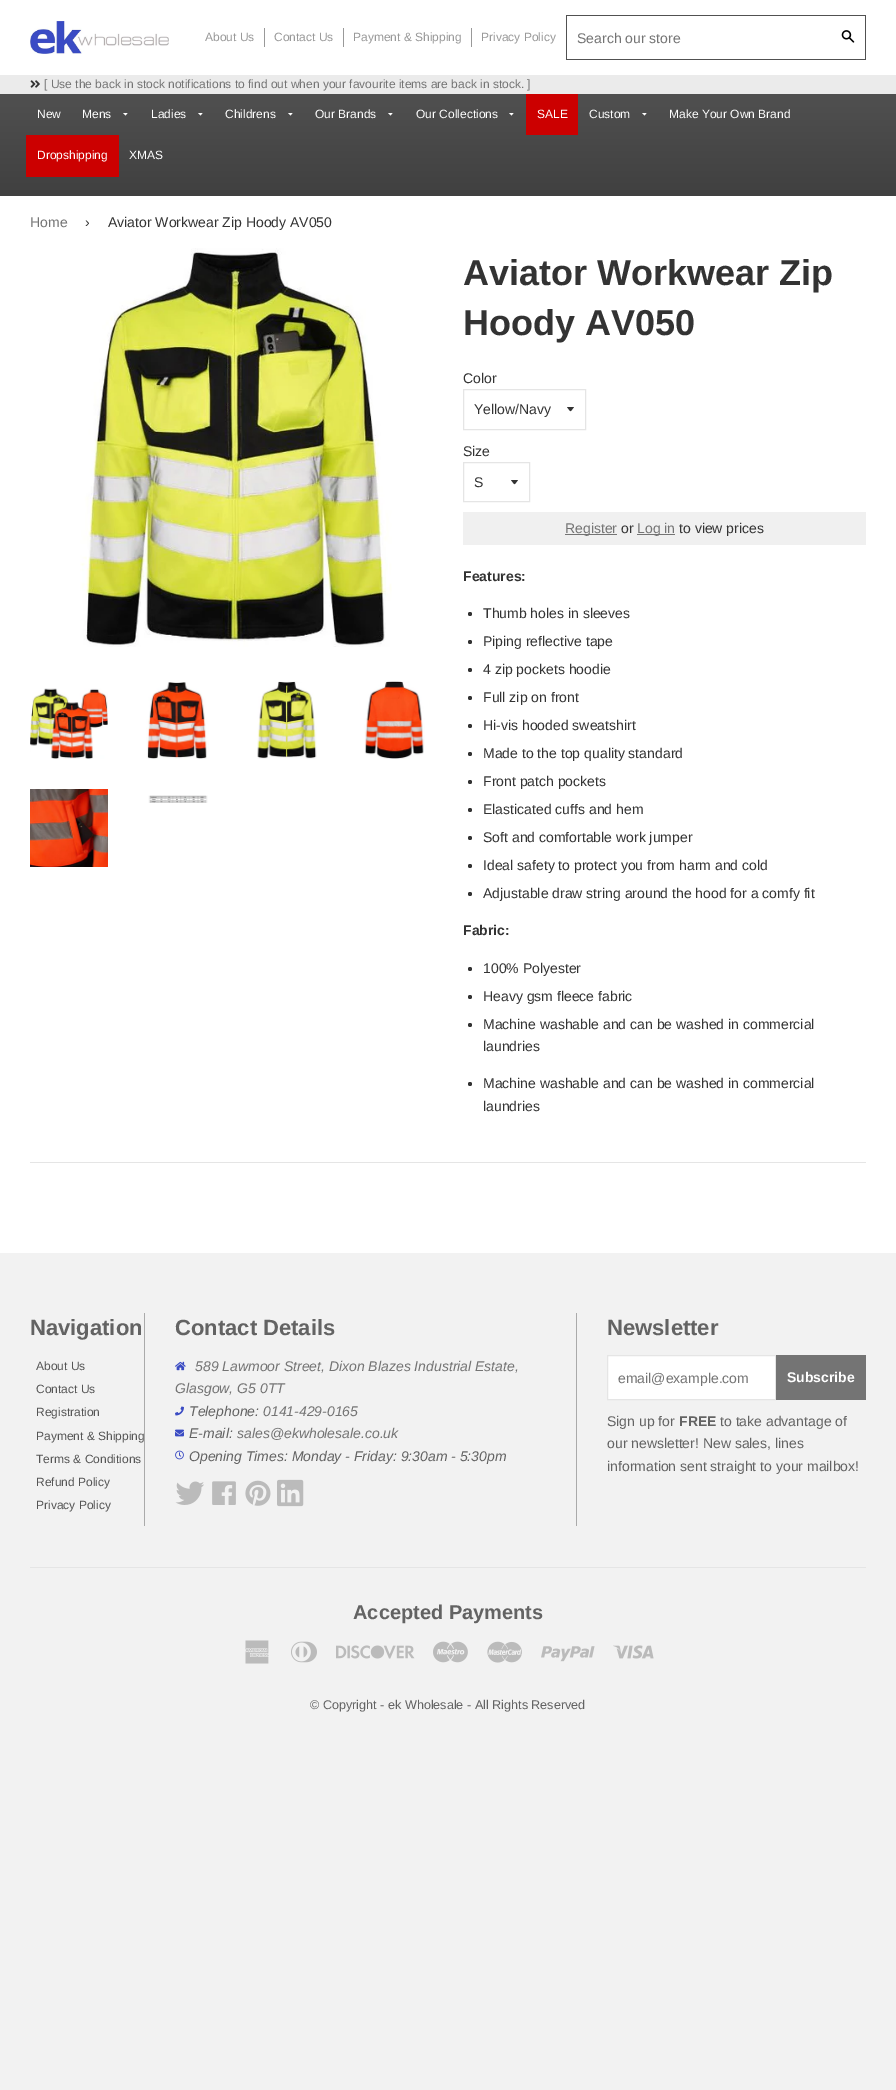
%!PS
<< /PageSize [896 2090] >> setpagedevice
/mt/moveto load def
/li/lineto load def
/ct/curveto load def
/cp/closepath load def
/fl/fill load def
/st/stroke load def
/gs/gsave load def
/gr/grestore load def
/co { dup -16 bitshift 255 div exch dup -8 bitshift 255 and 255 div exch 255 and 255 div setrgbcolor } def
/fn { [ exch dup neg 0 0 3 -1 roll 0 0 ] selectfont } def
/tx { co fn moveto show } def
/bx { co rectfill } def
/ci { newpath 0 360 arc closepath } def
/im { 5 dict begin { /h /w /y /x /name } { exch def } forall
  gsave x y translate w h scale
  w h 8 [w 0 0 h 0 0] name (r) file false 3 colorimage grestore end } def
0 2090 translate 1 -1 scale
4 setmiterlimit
0 0 896 2090 16#F2F2F2 bx
0 0 896 1253 16#FFFFFF bx
(media/1.raw) 30 21 139 33 im
264 28 1 19 16#999999 bx
343 28 1 19 16#999999 bx
471 28 1 19 16#999999 bx
566 15 300 1 16#515151 bx
566 59 265 1 16#515151 bx
566 15 1 45 16#515151 bx
865 15 1 45 16#515151 bx
831 59 35 1 16#515151 bx
(media/2.raw) 841 30 14 13 im
0 75 896 19 16#EBEBEB bx
(media/3.raw) 30 80 10 8 im
gs 0 94 mt 896 94 li 896 196 li 0 196 li cp clip newpath
<< /ShadingType 2 /ColorSpace /DeviceRGB /Coords [448 94 448 196] /Extend [true true] /Function << /FunctionType 2 /Domain [0 1] /C0 [.314 .314 .314] /C1 [.251 .251 .251] /N 1 >> >> shfill gr
16#FFFFFF co
123 113 mt 125.5 115.5 li 127.5 113 li cp fl
198 113 mt 200.5 115.5 li 202.5 113 li cp fl
288 113 mt 290.5 115.5 li 292.5 113 li cp fl
388 113 mt 390.5 115.5 li 392.5 113 li cp fl
509 113 mt 511.5 115.5 li 513.5 113 li cp fl
526 94 52 41 16#CC0000 bx
16#FFFFFF co
642 113 mt 644.5 115.5 li 646.5 113 li cp fl
26 135 93 42 16#CC0000 bx
(media/4.raw) 80 248 312 399 im
(media/5.raw) 30 688 78 71 im
(media/6.raw) 146 682 63 77 im
(media/7.raw) 257 681 60 78 im
(media/8.raw) 364 681 61 78 im
(media/9.raw) 30 789 78 78 im
(media/10.raw) 148 795 60 8 im
16#333333 co
567 407 mt 571.5 412.5 569.5 412.5 574 407 ct cp fl
16#E5E5E5 co
463.5 389.5 122 40 rectstroke
16#333333 co
511 480 mt 515.5 485.5 513.5 485.5 518 480 ct cp fl
16#E5E5E5 co
463.5 462.5 66 39 rectstroke
463 512 403 33 16#F0F0F0 bx
565 534 52 1 16#747474 bx
637 534 38 1 16#747474 bx
16#333333 co
470 614 2 ci fl
470 642 2 ci fl
470 670 2 ci fl
470 698 2 ci fl
470 726 2 ci fl
470 754 2 ci fl
470 782 2 ci fl
470 810 2 ci fl
470 838 2 ci fl
470 866 2 ci fl
470 894 2 ci fl
470 969 2 ci fl
470 997 2 ci fl
470 1025 2 ci fl
470 1084 2 ci fl
30 1162 836 1 16#E5E5E5 bx
576 1313 1 213 16#AAAAAA bx
144 1313 1 213 16#AAAAAA bx
(media/11.raw) 175 1361 11 10 im
(media/12.raw) 175 1406 9 10 im
(media/13.raw) 175 1429 9 8 im
(media/14.raw) 175 1450 9 10 im
(media/15.raw) 175 1481 29 24 im
(media/16.raw) 212 1481 24 24 im
(media/17.raw) 245 1480 26 26 im
(media/18.raw) 277 1479 27 28 im
16#FFFFFF co
607.5 1355.5 mt 775.5 1355.5 li 775.5 1399.5 li 607.5 1399.5 li cp gs fl gr
16#E5E5E5 co
st
776 1355 90 45 16#747474 bx
30 1567 836 1 16#E5E5E5 bx
(media/19.raw) 245 1640 24 24 im
(media/20.raw) 291 1641 26 22 im
(media/21.raw) 336 1645 79 14 im
(media/22.raw) 433 1641 35 22 im
(media/23.raw) 487 1641 35 22 im
(media/24.raw) 541 1646 54 16 im
(media/25.raw) 613 1645 41 14 im
(About Us) 205 41 /LiberationSans-Regular 12 16#999999 tx
(Contact Us) 274 41 /LiberationSans-Regular 12 16#999999 tx
(Payment & Shipping) 353 41 /LiberationSans-Regular 12 16#999999 tx
(Privacy Policy) 481 41 /LiberationSans-Regular 12 16#999999 tx
(Search our store) 577 43 /LiberationSans-Regular 14 16#747474 tx
([ Use the back in stock notifications to find out when your favourite items are back in stock. ]) 44 88 /LiberationSans-Regular 12 16#747474 tx
(New) 37 118 /LiberationSans-Regular 12 16#FFFFFF tx
(Mens) 82 118 /LiberationSans-Regular 12 16#FFFFFF tx
(Ladies) 151 118 /LiberationSans-Regular 12 16#FFFFFF tx
(Childrens) 225 118 /LiberationSans-Regular 12 16#FFFFFF tx
(Our Brands) 315 118 /LiberationSans-Regular 12 16#FFFFFF tx
(Our Collections) 416 118 /LiberationSans-Regular 12 16#FFFFFF tx
(SALE) 537 118 /LiberationSans-Regular 12 16#FFFFFF tx
(Custom) 589 118 /LiberationSans-Regular 12 16#FFFFFF tx
(Make Your Own Brand) 669 118 /LiberationSans-Regular 12 16#FFFFFF tx
(Dropshipping) 37 159 /LiberationSans-Regular 12 16#FFFFFF tx
(XMAS) 129 159 /LiberationSans-Regular 12 16#FFFFFF tx
(Home) 30 227 /LiberationSans-Regular 14 16#747474 tx
(›) 85 227 /LiberationSans-Regular 14 16#333333 tx
(Aviator Workwear Zip Hoody AV050) 108 227 /LiberationSans-Regular 14 16#333333 tx
(Aviator Workwear Zip) 463 285 /LiberationSans-Bold 36 16#333333 tx
(Hoody AV050) 463 335 /LiberationSans-Bold 36 16#333333 tx
(Color) 463 383 /LiberationSans-Regular 14 16#333333 tx
(Yellow/Navy) 474 414 /LiberationSans-Regular 14 16#333333 tx
(Size) 463 456 /LiberationSans-Regular 14 16#333333 tx
(S) 474 487 /LiberationSans-Regular 14 16#333333 tx
(Register) 565 533 /LiberationSans-Regular 14 16#747474 tx
(or) 621 533 /LiberationSans-Regular 14 16#333333 tx
(Log in) 637 533 /LiberationSans-Regular 14 16#747474 tx
(to view prices) 679 533 /LiberationSans-Regular 14 16#333333 tx
(Features:) 463 581 /LiberationSans-Bold 14 16#333333 tx
(Thumb holes in sleeves) 483 618 /LiberationSans-Regular 14 16#333333 tx
(Piping reflective tape) 483 646 /LiberationSans-Regular 14 16#333333 tx
(4 zip pockets hoodie) 483 674 /LiberationSans-Regular 14 16#333333 tx
(Full zip on front) 483 702 /LiberationSans-Regular 14 16#333333 tx
(Hi-vis hooded sweatshirt) 483 730 /LiberationSans-Regular 14 16#333333 tx
(Made to the top quality standard) 483 758 /LiberationSans-Regular 14 16#333333 tx
(Front patch pockets) 483 786 /LiberationSans-Regular 14 16#333333 tx
(Elasticated cuffs and hem) 483 814 /LiberationSans-Regular 14 16#333333 tx
(Soft and comfortable work jumper) 483 842 /LiberationSans-Regular 14 16#333333 tx
(Ideal safety to protect you from harm and cold) 483 870 /LiberationSans-Regular 14 16#333333 tx
(Adjustable draw string around the hood for a comfy fit) 483 898 /LiberationSans-Regular 14 16#333333 tx
(Fabric:) 463 935 /LiberationSans-Bold 14 16#333333 tx
(100% Polyester) 483 973 /LiberationSans-Regular 14 16#333333 tx
(Heavy gsm fleece fabric) 483 1001 /LiberationSans-Regular 14 16#333333 tx
(Machine washable and can be washed in commercial) 483 1029 /LiberationSans-Regular 14 16#333333 tx
(laundries) 483 1051 /LiberationSans-Regular 14 16#333333 tx
(Machine washable and can be washed in commercial) 483 1088 /LiberationSans-Regular 14 16#333333 tx
(laundries) 483 1111 /LiberationSans-Regular 14 16#333333 tx
(Navigation) 30 1335 /LiberationSans-Bold 22 16#636363 tx
(About Us) 36 1370 /LiberationSans-Regular 12 16#555555 tx
(Contact Us) 36 1393 /LiberationSans-Regular 12 16#555555 tx
(Registration) 36 1416 /LiberationSans-Regular 12 16#555555 tx
(Payment & Shipping) 36 1440 /LiberationSans-Regular 12 16#555555 tx
(Terms & Conditions) 36 1463 /LiberationSans-Regular 12 16#555555 tx
(Refund Policy) 36 1486 /LiberationSans-Regular 12 16#555555 tx
(Privacy Policy) 36 1509 /LiberationSans-Regular 12 16#555555 tx
(Contact Details) 175 1335 /LiberationSans-Bold 22 16#636363 tx
(589 Lawmoor Street, Dixon Blazes Industrial Estate,) 195 1371 /LiberationSans-Italic 14 16#747474 tx
(Glasgow, G5 0TT) 175 1393 /LiberationSans-Italic 14 16#747474 tx
(Telephone:) 189 1416 /LiberationSans-Italic 14 16#636363 tx
(0141-429-0165) 263 1416 /LiberationSans-Italic 14 16#747474 tx
(E-mail:) 189 1438 /LiberationSans-Italic 14 16#636363 tx
(sales@ekwholesale.co.uk) 237 1438 /LiberationSans-Italic 14 16#747474 tx
(Opening Times: Monday - Friday: 9:30am - 5:30pm) 189 1461 /LiberationSans-Italic 14 16#636363 tx
(Newsletter) 607 1335 /LiberationSans-Bold 22 16#636363 tx
(email@example.com) 618 1383 /LiberationSans-Regular 14 16#747474 tx
(Subscribe) 787 1382 /LiberationSans-Bold 14 16#FFFFFF tx
(Sign up for) 607 1426 /LiberationSans-Regular 14 16#636363 tx
(FREE) 679 1426 /LiberationSans-Bold 14 16#636363 tx
(to take advantage of) 720 1426 /LiberationSans-Regular 14 16#636363 tx
(our newsletter! New sales, lines) 607 1448 /LiberationSans-Regular 14 16#636363 tx
(information sent straight to your mailbox!) 607 1471 /LiberationSans-Regular 14 16#636363 tx
(Accepted Payments) 353 1619 /LiberationSans-Bold 20 16#636363 tx
(© Copyright - ek Wholesale - All Rights Reserved) 310 1709 /LiberationSans-Regular 12.6 16#636363 tx
showpage
